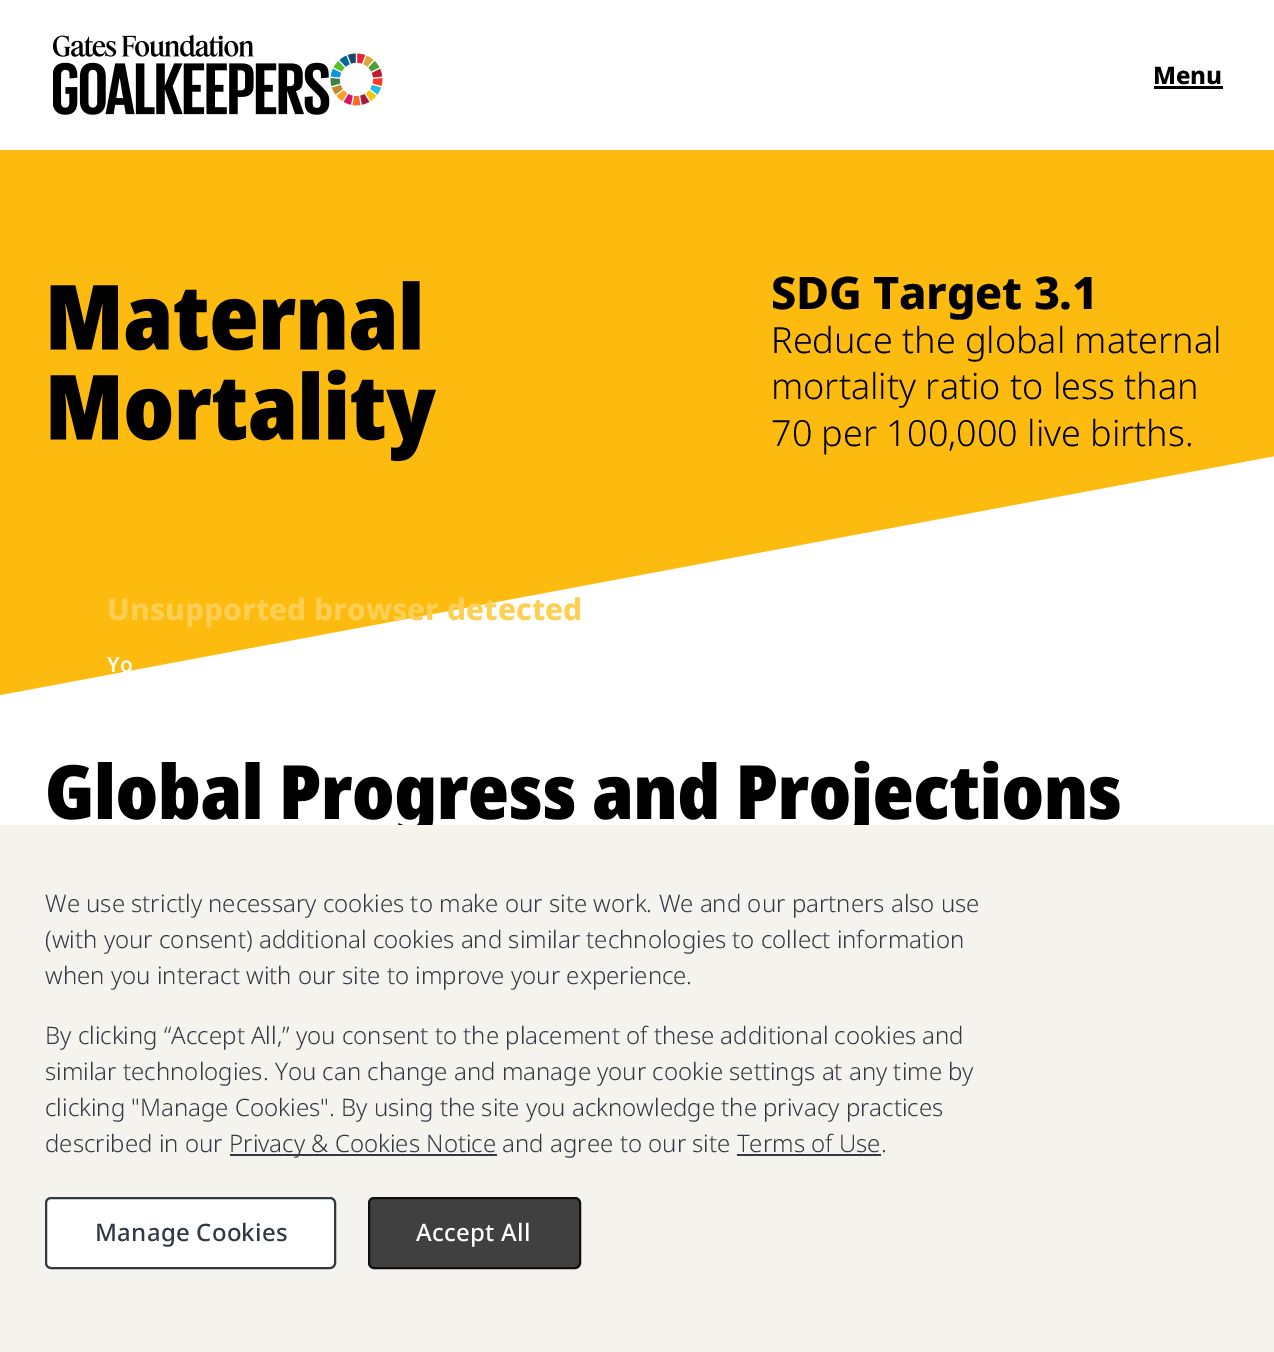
%!PS
<< /PageSize [1274 1352] >> setpagedevice
/mt/moveto load def
/li/lineto load def
/cp/closepath load def
/fl/fill load def
/st/stroke load def
/gs/gsave load def
/gr/grestore load def
/lw/setlinewidth load def
/co { dup -16 bitshift 255 div exch dup -8 bitshift 255 and 255 div exch 255 and 255 div setrgbcolor } def
/fn { [ exch dup neg 0 0 3 -1 roll 0 0 ] selectfont } def
/tx { co fn moveto show } def
/bx { co rectfill } def
/rr { 5 dict begin { /r /h /w /y /x } { exch def } forall
  x r add y moveto x w add y 2 copy h add r arct x w add y h add x 1 index r arct
  x y h add x y r arct x y 2 copy exch w add exch r arct closepath end } def
/im { 5 dict begin { /h /w /y /x /name } { exch def } forall
  gsave x y translate w h scale
  w h 8 [w 0 0 h 0 0] name (r) file false 3 colorimage grestore end } def
0 1352 translate 1 -1 scale
4 setmiterlimit
0 0 1274 1352 16#FFFFFF bx
16#FCBB0E co
0 149 mt 0 695 li 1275 456 li 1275 149 li cp fl
0 149 1274 1 16#FFFFFF bx
(media/1.raw) 53 35 330 80 im
1154 86 69 3 16#000000 bx
(media/2.raw) 50 281 370 70 im
(media/3.raw) 50 369 386 93 im
(media/4.raw) 48 760 1072 65 im
0 825 1274 527 16#F5F3ED bx
230 1154 267 2 16#313A44 bx
737 1154 144 2 16#313A44 bx
16#FFFFFF co
46 1198 289 70 5 rr gs fl gr
16#313A44 co
2 lw
st
16#404040 co
369 1198 211 70 5 rr gs fl gr
16#0F0F0F co
st
(Menu) 1153 84 /NotoSans-ExtraBold 24 16#000000 tx
/NotoSans-ExtraBold 45 fn
771 309 mt -.25 0 (SDG Target 3.1) ashow
(Reduce the global maternal) 771 353 /NotoSans-Light 36 16#000000 tx
(mortality ratio to less than) 771 399 /NotoSans-Light 36 16#000000 tx
(70 per 100,000 live births.) 771 446 /NotoSans-Light 36 16#000000 tx
(Unsupported browser detected) 107 620 /NotoSans-ExtraBold 30 16#FDCF53 tx
(Yo) 107 672 /NotoSans-SemiBold 21 16#FFFCF4 tx
(We use strictly necessary cookies to make our site work. We and our partners also use) 45 912 /NotoSans-Light 24 16#313A44 tx
(\(with your consent\) additional cookies and similar technologies to collect information) 45 948 /NotoSans-Light 24 16#313A44 tx
(when you interact with our site to improve your experience.) 45 984 /NotoSans-Light 24 16#313A44 tx
(By clicking “Accept All,” you consent to the placement of these additional cookies and) 45 1044 /NotoSans-Light 24 16#313A44 tx
(similar technologies. You can change and manage your cookie settings at any time by) 45 1080 /NotoSans-Light 24 16#313A44 tx
(clicking "Manage Cookies". By using the site you acknowledge the privacy practices) 45 1116 /NotoSans-Light 24 16#313A44 tx
(described in our) 45 1152 /NotoSans-Light 24 16#313A44 tx
(Privacy & Cookies Notice and agree to our site Terms of Use.) 229 1152 /NotoSans-Light 24 16#313A44 tx
/NotoSans-Medium 24 fn
95 1241 mt .25 0 (Manage Cookies) ashow
16#FFFFFF co
416 1241 mt .25 0 (Accept All) ashow
showpage
